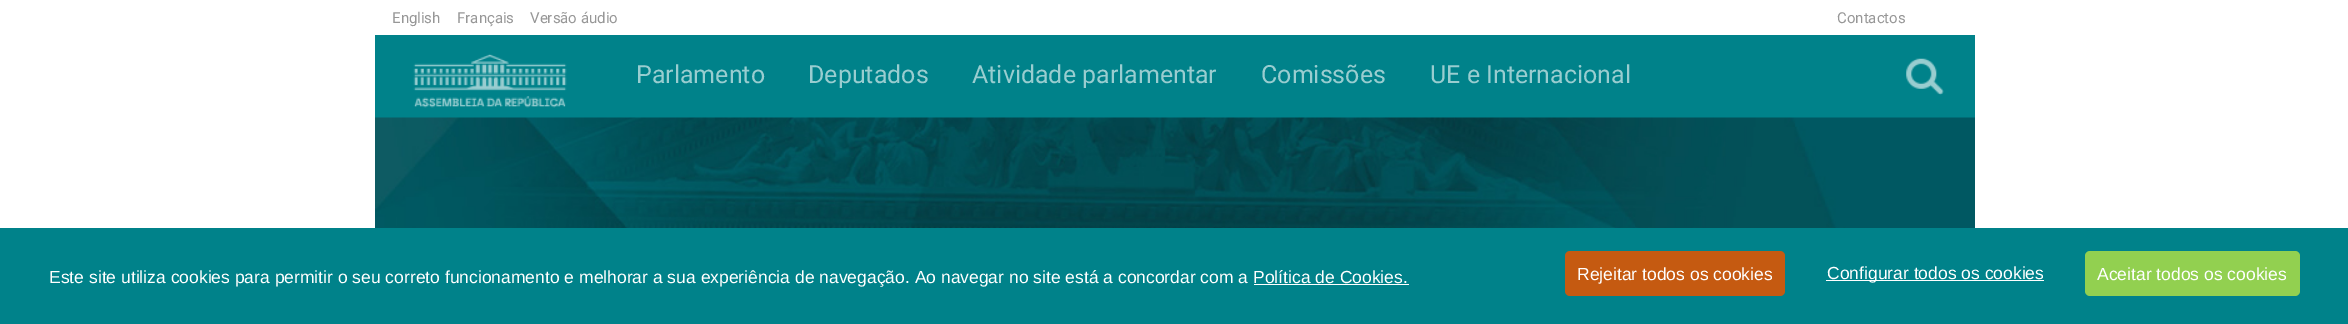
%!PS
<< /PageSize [2348 324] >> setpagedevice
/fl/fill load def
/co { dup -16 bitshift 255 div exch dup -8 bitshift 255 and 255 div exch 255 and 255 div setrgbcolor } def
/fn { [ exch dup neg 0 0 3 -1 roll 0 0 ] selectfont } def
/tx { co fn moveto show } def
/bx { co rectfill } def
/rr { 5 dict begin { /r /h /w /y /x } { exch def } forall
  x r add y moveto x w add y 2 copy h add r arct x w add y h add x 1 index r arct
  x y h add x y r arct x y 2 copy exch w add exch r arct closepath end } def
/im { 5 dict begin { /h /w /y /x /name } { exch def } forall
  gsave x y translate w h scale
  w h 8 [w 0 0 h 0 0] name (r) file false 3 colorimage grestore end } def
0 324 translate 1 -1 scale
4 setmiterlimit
0 0 2348 324 16#FFFFFF bx
375 35 1600 83 16#00828A bx
(media/1.raw) 413 54 154 54 im
(media/2.raw) 1906 58 38 37 im
(media/3.raw) 375 117 1600 111 im
0 228 2348 96 16#00828A bx
1254 284 155 1 16#FFFFFF bx
16#C55A11 co
1565 251 220 45 5 rr fl
1826 280 218 1 16#FFFFFF bx
16#92D050 co
2085 251 215 45 5 rr fl
(English) 392 23 /Roboto-Regular 15 16#979797 tx
(Français) 457 23 /Roboto-Regular 15 16#979797 tx
(Versão áudio) 530 23 /Roboto-Regular 15 16#979797 tx
(Contactos) 1837 23 /Roboto-Regular 15 16#979797 tx
(Parlamento) 636 83 /Roboto-Regular 25 16#99CDD0 tx
(Deputados) 808 83 /Roboto-Regular 25 16#99CDD0 tx
(Atividade parlamentar) 972 83 /Roboto-Regular 25 16#99CDD0 tx
(Comissões) 1261 83 /Roboto-Regular 25 16#99CDD0 tx
(UE e Internacional) 1430 83 /Roboto-Regular 25 16#99CDD0 tx
(Este site utiliza cookies para permitir o seu correto funcionamento e melhorar a sua experiência de navegação. Ao navegar no site está a concordar com a Política de Cookies.) 49 283 /LiberationSans-Regular 17.5 16#FFFFFF tx
(Rejeitar todos os cookies) 1577 280 /LiberationSans-Regular 17.5 16#FFFFFF tx
(Configurar todos os cookies) 1827 279 /LiberationSans-Regular 17.5 16#FFFFFF tx
(Aceitar todos os cookies) 2097 280 /LiberationSans-Regular 17.5 16#FFFFFF tx
showpage
